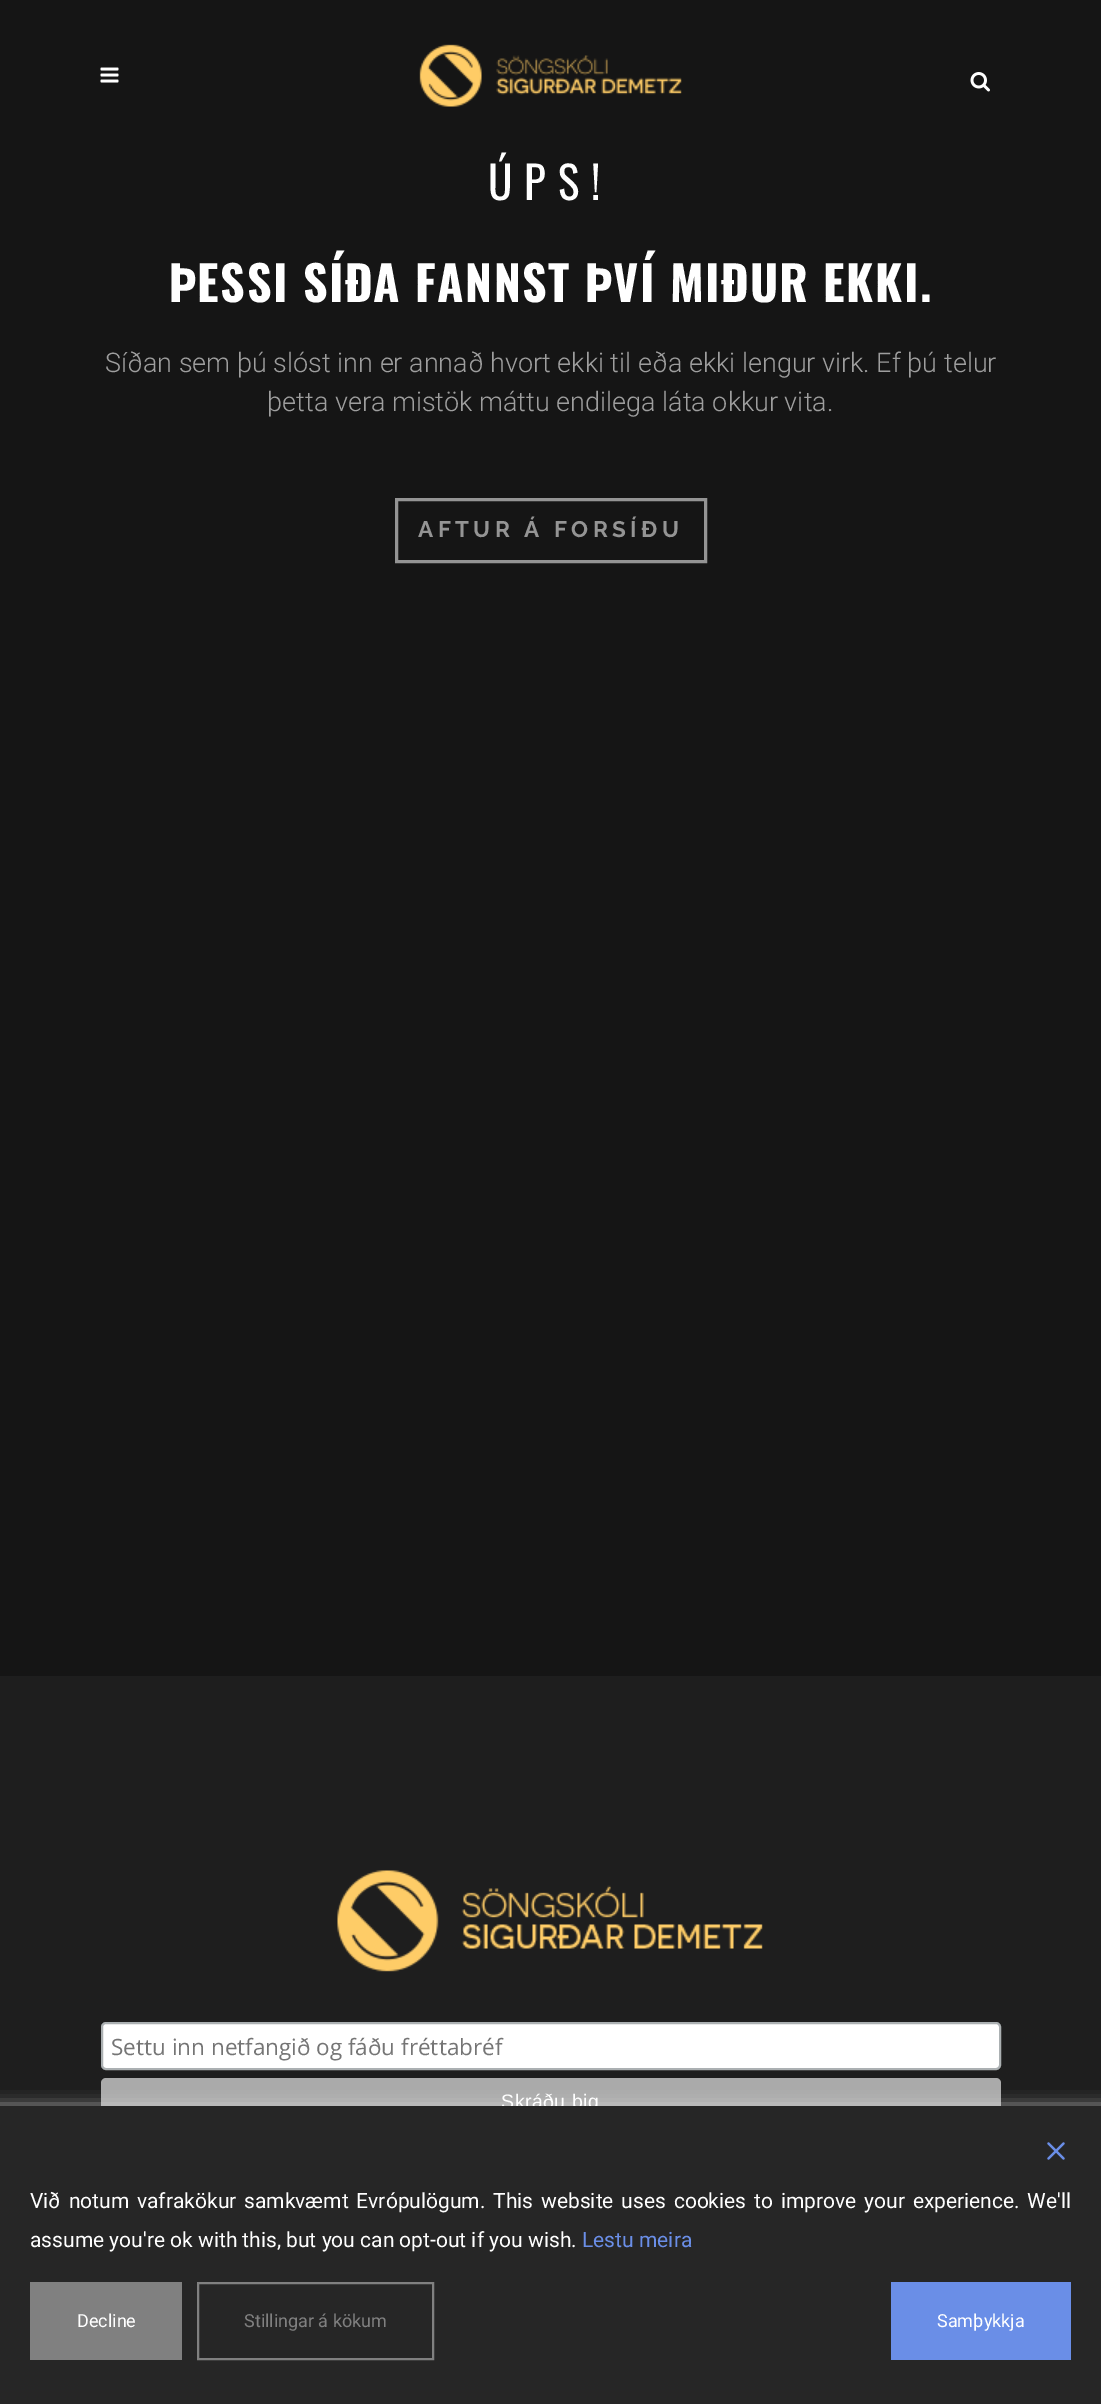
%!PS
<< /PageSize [1101 2404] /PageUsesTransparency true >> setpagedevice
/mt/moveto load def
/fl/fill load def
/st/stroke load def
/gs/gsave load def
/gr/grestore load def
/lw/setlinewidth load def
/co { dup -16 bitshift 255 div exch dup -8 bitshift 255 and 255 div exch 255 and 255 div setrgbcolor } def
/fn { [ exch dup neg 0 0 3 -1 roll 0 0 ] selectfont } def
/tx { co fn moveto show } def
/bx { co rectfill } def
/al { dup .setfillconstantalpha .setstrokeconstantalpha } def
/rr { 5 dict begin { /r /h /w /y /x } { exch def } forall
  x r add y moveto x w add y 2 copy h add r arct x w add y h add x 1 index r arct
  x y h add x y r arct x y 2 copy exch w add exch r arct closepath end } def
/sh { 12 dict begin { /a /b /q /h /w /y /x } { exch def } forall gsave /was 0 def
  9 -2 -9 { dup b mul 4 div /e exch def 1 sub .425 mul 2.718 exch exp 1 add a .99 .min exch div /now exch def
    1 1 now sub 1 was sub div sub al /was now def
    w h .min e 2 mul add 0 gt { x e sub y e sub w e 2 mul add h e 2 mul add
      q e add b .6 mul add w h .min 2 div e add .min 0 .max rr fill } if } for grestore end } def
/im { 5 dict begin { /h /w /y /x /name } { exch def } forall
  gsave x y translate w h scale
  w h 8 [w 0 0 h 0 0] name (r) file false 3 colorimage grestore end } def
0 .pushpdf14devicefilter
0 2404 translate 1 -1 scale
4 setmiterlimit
0 0 1101 2404 16#151515 bx
(media/1.raw) 100 67 19 16 im
(media/2.raw) 419 44 263 63 im
(media/3.raw) 970 72 20 20 im
16#949494 co
3 lw
396.5 499.5 309 62 rectstroke
0 1676 1101 430 16#1E1E1E bx
(media/4.raw) 337 1870 426 102 im
16#FFFFFF co
102 2023 898 46 4 rr gs fl gr
16#ABB0B2 co
2 lw
st
16#AAAAAA co
101 2078 900 48 5 rr fl
16#DDDDDD co
-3 2108 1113 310 0 8 1 sh
/Oswald-Regular 45 fn
16#FFFFFF co
488 200 mt 12 0 (ÚPS!) ashow
/Oswald-Bold 48 fn
169 302 mt 1.5 0 (ÞESSI SÍÐA FANNST ÞVÍ MIÐUR EKKI.) ashow
(Síðan sem þú slóst inn er annað hvort ekki til eða ekki lengur virk. Ef þú telur) 105 372 /Roboto-Light 27 16#9E9E9E tx
(þetta vera mistök máttu endilega láta okkur vita.) 267 411 /Roboto-Light 27 16#9E9E9E tx
/Raleway-Bold 22.5 fn
16#949494 co
418 537 mt 4.5 0 (AFTUR Á FORSÍÐU) ashow
(Settu inn netfangið og fáðu fréttabréf) 111 2055 /OpenSans-Regular 22.5 16#757575 tx
/LiberationSans-Regular 19.5 fn
16#FFFFFF co
501 2108 mt .5 0 (Skráðu þig) ashow
0 2106 1101 298 16#262626 bx
(media/5.raw) 1047 2142 18 18 im
/Roboto-Regular 21 fn
16#FFFFFF co
30 2208 mt 2.6 0 32 (Við notum vafrakökur samkvæmt Evrópulögum. This website uses cookies to improve your experience. We'll) widthshow
(assume you're ok with this, but you can opt-out if you wish.) 30 2247 /Roboto-Regular 21 16#FFFFFF tx
(Lestu meira) 582 2247 /Roboto-Regular 21 16#6A8EE7 tx
30 2282 152 78 16#808080 bx
(Decline) 77 2327 /Roboto-Regular 18 16#FFFFFF tx
16#808080 co
198 2283 235 76 rectstroke
(Stillingar á kökum) 244 2327 /Roboto-Regular 18 16#808080 tx
891 2282 180 78 16#6A8EE7 bx
(Samþykkja) 937 2327 /Roboto-Regular 18 16#FFFFFF tx
.poppdf14devicefilter showpage
